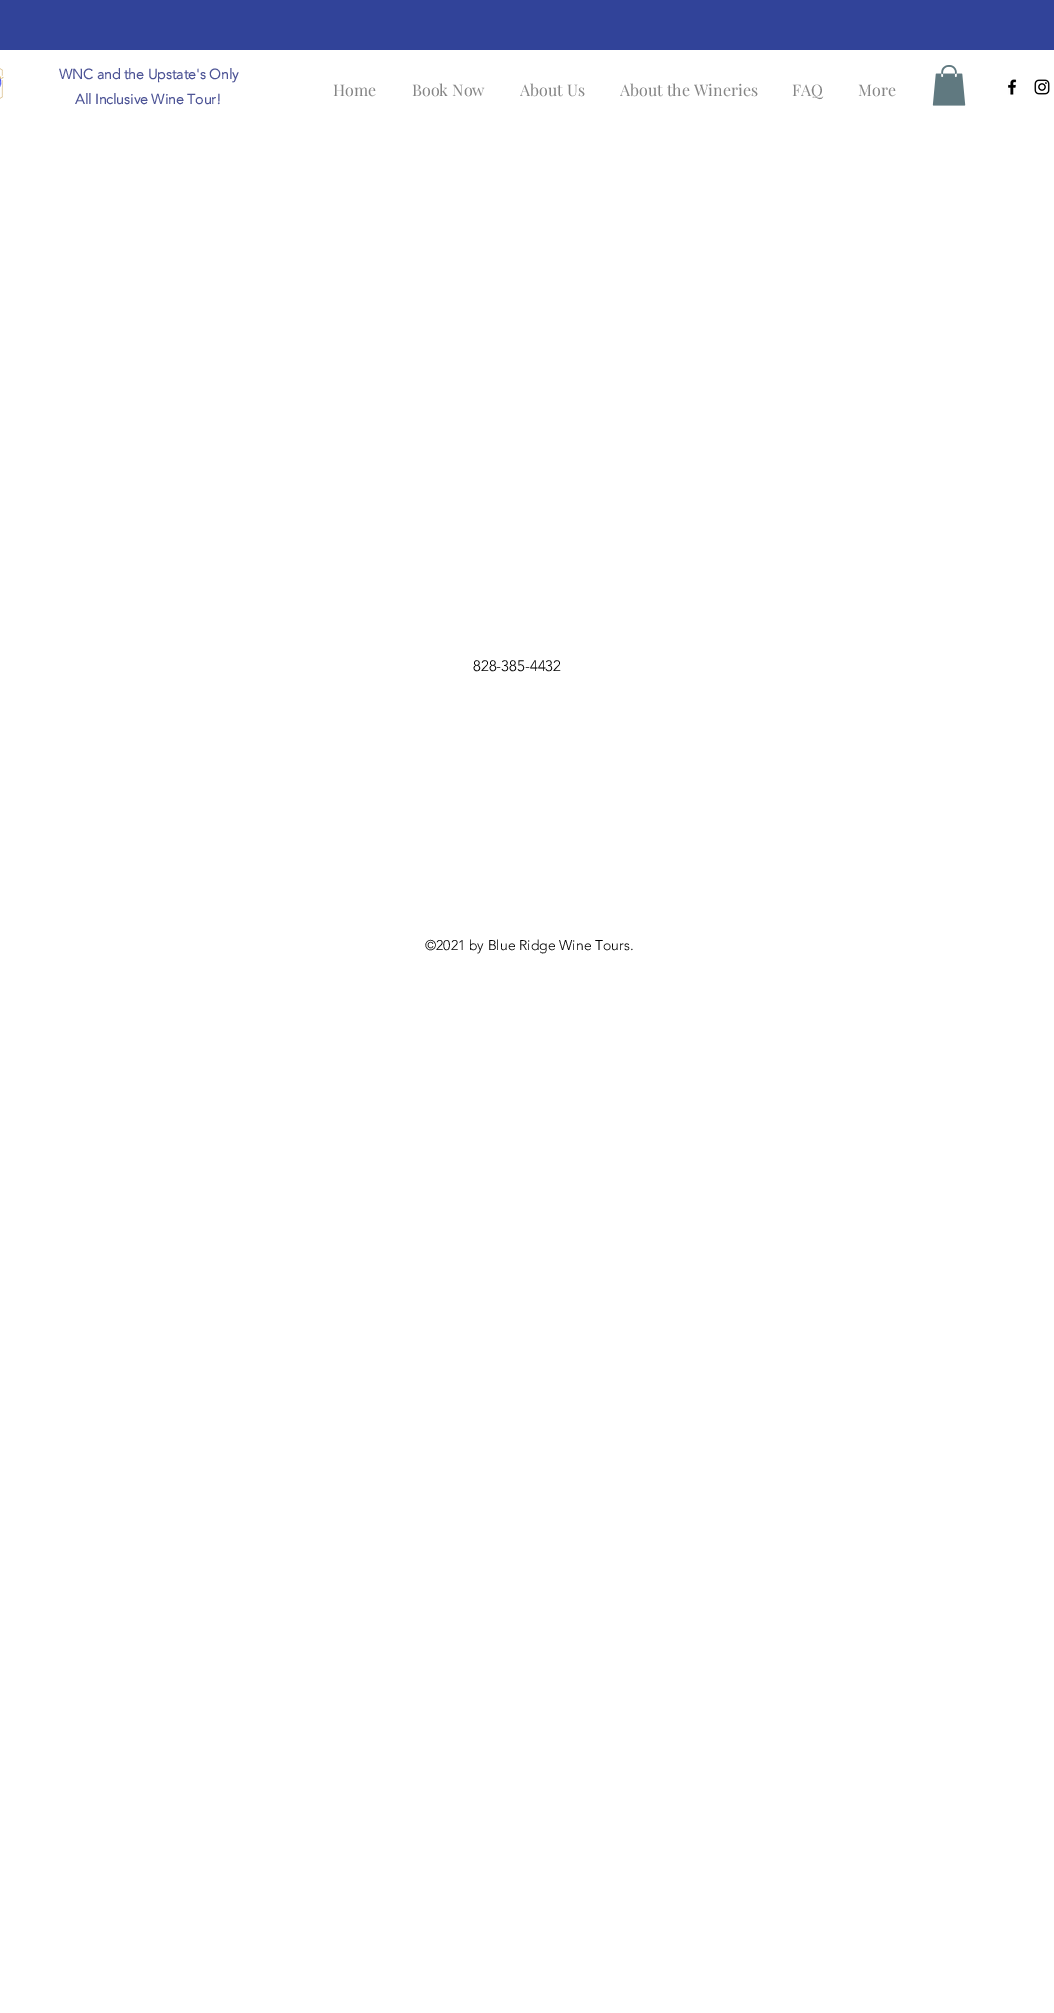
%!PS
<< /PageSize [1054 2013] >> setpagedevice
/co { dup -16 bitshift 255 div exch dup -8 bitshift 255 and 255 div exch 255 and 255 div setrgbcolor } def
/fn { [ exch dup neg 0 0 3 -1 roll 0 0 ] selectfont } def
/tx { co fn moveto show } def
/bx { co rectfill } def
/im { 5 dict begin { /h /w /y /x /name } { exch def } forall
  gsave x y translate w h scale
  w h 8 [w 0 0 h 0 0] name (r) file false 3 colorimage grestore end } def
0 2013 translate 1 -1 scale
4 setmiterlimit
0 0 1054 2013 16#FFFFFF bx
0 0 1054 50 16#314399 bx
(media/1.raw) 0 68 4 31 im
(media/2.raw) 932 65 34 41 im
(media/3.raw) 1008 79 9 16 im
(media/4.raw) 1034 79 16 16 im
(WNC and the Upstate's Only) 59 79 /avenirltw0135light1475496-Bold 14 16#4D5496 tx
(All Inclusive Wine Tour!) 75 104 /avenirltw0135light1475496-Bold 14 16#4D5496 tx
(Home) 333 96 /PlayfairDisplay-Regular 16 16#858585 tx
(Book Now) 412 96 /PlayfairDisplay-Regular 16 16#858585 tx
(About Us) 520 96 /PlayfairDisplay-Regular 16 16#858585 tx
(About the Wineries) 620 96 /PlayfairDisplay-Regular 16 16#858585 tx
(FAQ) 792 96 /PlayfairDisplay-Regular 16 16#858585 tx
(More) 858 96 /PlayfairDisplay-Regular 16 16#858585 tx
(828-385-4432) 473 671 /avenirltw0135light1475496-Light 15 16#000000 tx
(©2021 by Blue Ridge Wine Tours.) 425 950 /avenirltw0135light1475496-Light 14 16#000000 tx
showpage
